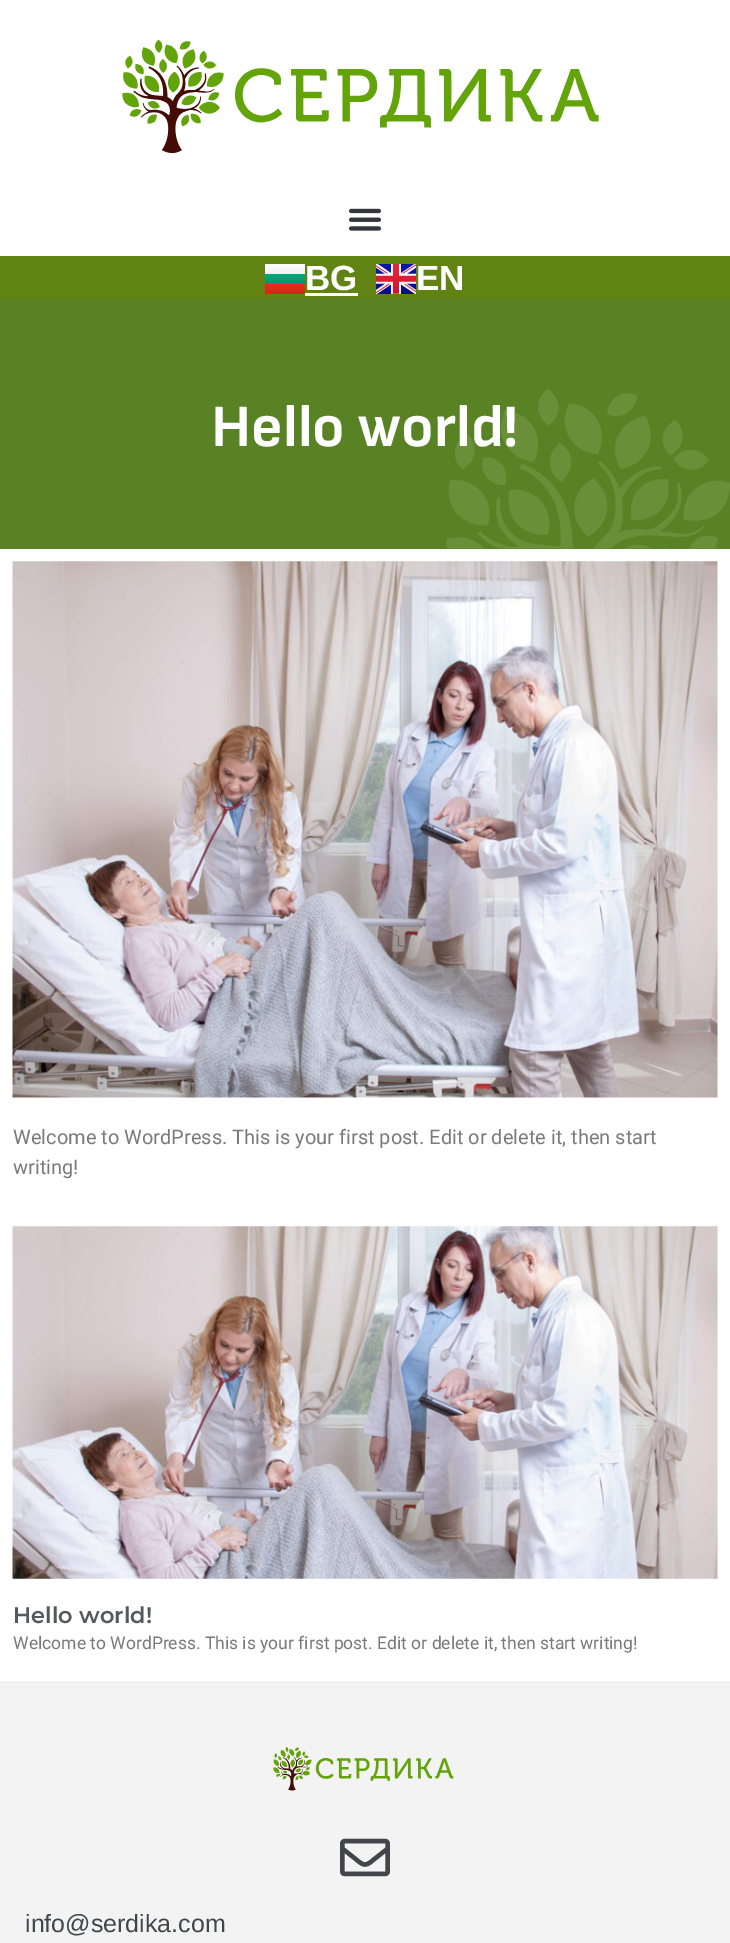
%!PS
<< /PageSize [730 1943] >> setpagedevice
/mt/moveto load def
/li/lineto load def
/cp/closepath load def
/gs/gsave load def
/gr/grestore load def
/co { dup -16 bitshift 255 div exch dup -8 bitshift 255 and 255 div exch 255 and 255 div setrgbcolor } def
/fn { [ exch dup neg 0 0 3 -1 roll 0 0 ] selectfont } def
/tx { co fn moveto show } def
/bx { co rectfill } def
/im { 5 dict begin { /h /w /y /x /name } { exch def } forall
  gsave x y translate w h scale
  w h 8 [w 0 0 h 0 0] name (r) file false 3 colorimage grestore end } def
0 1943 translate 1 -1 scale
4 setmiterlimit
0 0 730 1943 16#FFFFFF bx
0 256 730 43 16#618314 bx
(media/1.raw) 122 39 477 114 im
(media/2.raw) 349 208 32 23 im
gs 265 264 mt 305 264 li 305 274 li 265 274 li cp clip newpath
<< /ShadingType 2 /ColorSpace /DeviceRGB /Coords [285 264 285 274] /Extend [true true] /Function << /FunctionType 2 /Domain [0 1] /C0 [1 1 1] /C1 [.941 .941 .941] /N 1 >> >> shfill gr
gs 265 274 mt 305 274 li 305 284 li 265 284 li cp clip newpath
<< /ShadingType 2 /ColorSpace /DeviceRGB /Coords [285 274 285 284] /Extend [true true] /Function << /FunctionType 2 /Domain [0 1] /C0 [.024 .655 .486] /C1 [0 .588 .431] /N 1 >> >> shfill gr
gs 265 284 mt 305 284 li 305 294 li 265 294 li cp clip newpath
<< /ShadingType 2 /ColorSpace /DeviceRGB /Coords [285 284 285 294] /Extend [true true] /Function << /FunctionType 2 /Domain [0 1] /C0 [.89 .18 .098] /C1 [.839 .149 .071] /N 1 >> >> shfill gr
305 293 53 3 16#FFFFFF bx
(media/3.raw) 376 264 40 30 im
0 299 730 250 16#588223 bx
(media/4.raw) 446 389 284 160 im
(media/5.raw) 12 561 706 537 im
(media/6.raw) 12 1226 706 353 im
0 1681 730 262 16#F3F3F3 bx
(media/7.raw) 273 1747 181 44 im
(media/8.raw) 340 1838 50 39 im
(BG) 305 290 /LiberationSans-Bold 35 16#FFFFFF tx
(EN) 416 290 /LiberationSans-Bold 35 16#FFFFFF tx
(Hello world!) 211 446 /SofiaSans-Bold 60 16#FFFFFF tx
(Welcome to WordPress. This is your first post. Edit or delete it, then start) 13 1144 /Roboto-Regular 20 16#7A7A7A tx
(writing!) 13 1174 /Roboto-Regular 20 16#7A7A7A tx
(Hello world!) 13 1623 /Montserrat-SemiBold 22.5 16#54595F tx
(Welcome to WordPress. This is your first post. Edit or delete it, then start writing!) 13 1649 /Roboto-Regular 17.5 16#7A7A7A tx
(info@serdika.com) 25 1932 /LiberationSans-Regular 25 16#42464B tx
showpage
